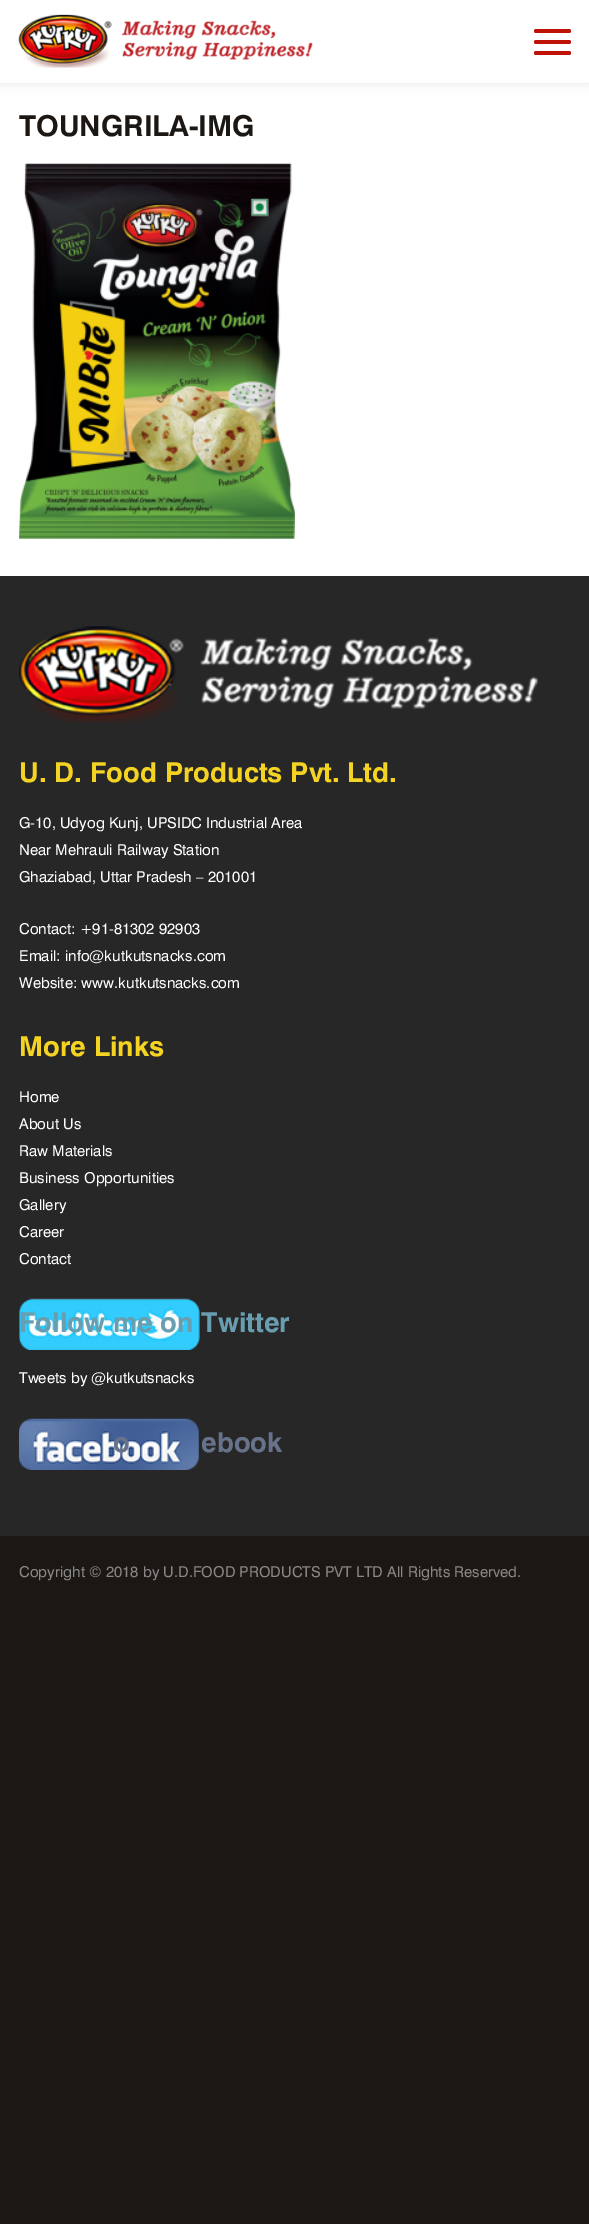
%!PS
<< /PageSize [589 2224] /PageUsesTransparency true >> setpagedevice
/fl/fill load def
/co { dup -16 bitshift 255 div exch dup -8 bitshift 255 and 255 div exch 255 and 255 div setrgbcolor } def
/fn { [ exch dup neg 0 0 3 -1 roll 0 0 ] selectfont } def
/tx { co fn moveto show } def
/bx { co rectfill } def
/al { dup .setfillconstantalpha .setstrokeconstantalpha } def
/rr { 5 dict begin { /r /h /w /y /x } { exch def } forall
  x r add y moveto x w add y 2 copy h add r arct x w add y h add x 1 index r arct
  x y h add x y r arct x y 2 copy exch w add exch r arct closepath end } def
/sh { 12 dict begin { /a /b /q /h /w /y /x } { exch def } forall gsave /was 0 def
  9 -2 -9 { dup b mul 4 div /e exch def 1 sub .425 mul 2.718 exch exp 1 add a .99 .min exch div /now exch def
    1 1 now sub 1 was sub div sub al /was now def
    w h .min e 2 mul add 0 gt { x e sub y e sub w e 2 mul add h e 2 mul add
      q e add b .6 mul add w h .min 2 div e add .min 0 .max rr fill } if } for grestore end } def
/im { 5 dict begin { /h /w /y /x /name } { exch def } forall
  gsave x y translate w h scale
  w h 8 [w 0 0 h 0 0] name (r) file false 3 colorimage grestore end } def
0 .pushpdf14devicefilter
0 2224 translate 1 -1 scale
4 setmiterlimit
0 0 589 2224 16#1D1714 bx
0 83 589 493 16#FFFFFF bx
16#000000 co
0 0 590 83 0 6 .1 sh
0 0 589 83 16#FFFFFF bx
(media/1.raw) 18 14 295 54 im
16#BE1204 co
534 29 37 4 2 rr fl
534 40 37 4 2 rr fl
534 51 37 4 2 rr fl
(media/2.raw) 19 163 276 376 im
0 576 589 960 16#272727 bx
(media/3.raw) 19 626 519 97 im
(media/4.raw) 19 1298 181 52 im
(media/5.raw) 19 1418 180 52 im
(TOUNGRILA-IMG) 19 136 /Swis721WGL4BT-Bold 28.75 16#1D1714 tx
(U. D. Food Products Pvt. Ltd.) 19 782 /Swis721WGL4BT-Bold 27.5 16#F5D323 tx
(G-10, Udyog Kunj, UPSIDC Industrial Area) 19 828 /Swis721WGL4BT-Regular 15 16#FFFFFF tx
(Near Mehrauli Railway Station) 19 855 /Swis721WGL4BT-Regular 15 16#FFFFFF tx
(Ghaziabad, Uttar Pradesh – 201001) 19 882 /Swis721WGL4BT-Regular 15 16#FFFFFF tx
(Contact: +91-81302 92903) 19 934 /Swis721WGL4BT-Regular 15 16#FFFFFF tx
(Email: info@kutkutsnacks.com) 19 961 /Swis721WGL4BT-Regular 15 16#FFFFFF tx
(Website: www.kutkutsnacks.com) 19 988 /Swis721WGL4BT-Regular 15 16#FFFFFF tx
(More Links) 19 1056 /Swis721WGL4BT-Bold 27.5 16#F5D323 tx
(Home) 19 1102 /Swis721WGL4BT-Regular 15 16#FFFFFF tx
(About Us) 19 1129 /Swis721WGL4BT-Regular 15 16#FFFFFF tx
(Raw Materials) 19 1156 /Swis721WGL4BT-Regular 15 16#FFFFFF tx
(Business Opportunities) 19 1183 /Swis721WGL4BT-Regular 15 16#FFFFFF tx
(Gallery) 19 1210 /Swis721WGL4BT-Regular 15 16#FFFFFF tx
(Career) 19 1237 /Swis721WGL4BT-Regular 15 16#FFFFFF tx
(Contact) 19 1264 /Swis721WGL4BT-Regular 15 16#FFFFFF tx
(Follow me on Twitter) 19 1332 /Swis721WGL4BT-Bold 27.5 16#689EAF tx
(Tweets by @kutkutsnacks) 19 1383 /Swis721WGL4BT-Regular 15 16#FFFFFF tx
(o) 113 1452 /Swis721WGL4BT-Bold 27.5 16#67738A tx
(ebook) 201 1452 /Swis721WGL4BT-Bold 27.5 16#67738A tx
(Copyright © 2018 by U.D.FOOD PRODUCTS PVT LTD All Rights Reserved.) 19 1577 /Swis721WGL4BT-Regular 15 16#878787 tx
.poppdf14devicefilter showpage
